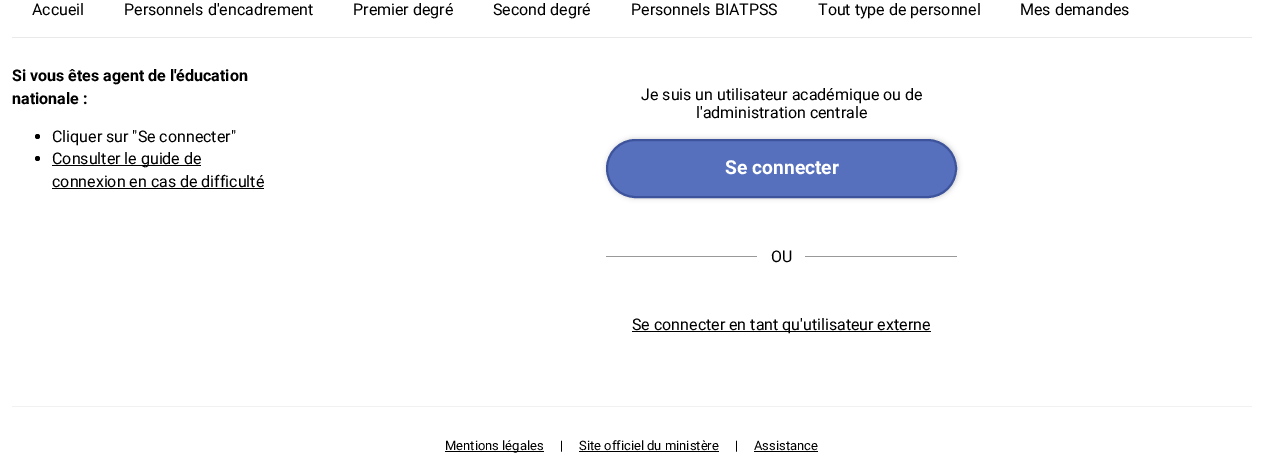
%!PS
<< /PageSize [1263 476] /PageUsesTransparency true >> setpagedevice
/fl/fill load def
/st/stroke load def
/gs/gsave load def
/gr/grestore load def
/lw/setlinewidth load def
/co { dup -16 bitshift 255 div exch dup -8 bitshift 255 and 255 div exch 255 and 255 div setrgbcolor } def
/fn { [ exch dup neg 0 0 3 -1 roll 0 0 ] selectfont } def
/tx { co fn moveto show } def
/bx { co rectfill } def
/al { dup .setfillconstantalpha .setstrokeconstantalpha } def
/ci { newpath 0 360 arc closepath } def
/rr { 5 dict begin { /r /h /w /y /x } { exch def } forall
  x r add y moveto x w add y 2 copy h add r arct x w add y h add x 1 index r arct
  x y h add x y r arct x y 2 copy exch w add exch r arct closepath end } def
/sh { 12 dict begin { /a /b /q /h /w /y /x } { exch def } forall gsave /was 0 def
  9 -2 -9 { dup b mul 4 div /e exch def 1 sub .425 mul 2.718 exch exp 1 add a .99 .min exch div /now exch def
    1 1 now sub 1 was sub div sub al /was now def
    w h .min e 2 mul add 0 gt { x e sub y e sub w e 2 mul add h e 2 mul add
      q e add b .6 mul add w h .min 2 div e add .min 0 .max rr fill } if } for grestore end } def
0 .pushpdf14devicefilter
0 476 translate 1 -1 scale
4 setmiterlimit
0 0 1263 476 16#FFFFFF bx
12 37 1240 1 16#E9E9E9 bx
16#000000 co
37.5 136.5 2.5 ci fl
37.5 158.5 2.5 ci fl
52 165 149 1 16#000000 bx
52 188 212 1 16#000000 bx
607 139 351 59 29.5 2.5 .21 sh
16#5770BE co
607 140 349 57 28.5 rr gs fl gr
16#3D549D co
2 lw
st
606 256 351 1 16#999999 bx
757 256 48 1 16#FFFFFF bx
632 331 299 1 16#000000 bx
12 406 1240 1 16#F1F1F1 bx
445 451 99 1 16#000000 bx
579 451 140 1 16#000000 bx
754 451 64 1 16#000000 bx
(Accueil) 32 15 /Roboto-Regular 16 16#000000 tx
(Personnels d'encadrement) 124 15 /Roboto-Regular 16 16#000000 tx
(Premier degré) 353 15 /Roboto-Regular 16 16#000000 tx
(Second degré) 493 15 /Roboto-Regular 16 16#000000 tx
(Personnels BIATPSS) 631 15 /Roboto-Regular 16 16#000000 tx
(Tout type de personnel) 818 15 /Roboto-Regular 16 16#000000 tx
(Mes demandes) 1020 15 /Roboto-Regular 16 16#000000 tx
(Si vous êtes agent de l'éducation) 12 81 /Roboto-Bold 16 16#000000 tx
(nationale :) 12 104 /Roboto-Bold 16 16#000000 tx
(Cliquer sur "Se connecter") 52 142 /Roboto-Regular 16 16#000000 tx
(Consulter le guide de) 52 164 /Roboto-Regular 16 16#000000 tx
(connexion en cas de difficulté) 52 187 /Roboto-Regular 16 16#000000 tx
(Je suis un utilisateur académique ou de) 641 100 /Roboto-Regular 16 16#000000 tx
(l'administration centrale) 696 118 /Roboto-Regular 16 16#000000 tx
(Se connecter) 725 174 /Roboto-Bold 19.25 16#FFFFFF tx
(OU) 771 262 /Roboto-Regular 16 16#000000 tx
(Se connecter en tant qu'utilisateur externe) 632 330 /Roboto-Regular 16 16#000000 tx
(Mentions légales) 445 450 /Roboto-Regular 13 16#000000 tx
(|) 560 450 /Roboto-Regular 13 16#000000 tx
(Site officiel du ministère) 579 450 /Roboto-Regular 13 16#000000 tx
(|) 735 450 /Roboto-Regular 13 16#000000 tx
(Assistance) 754 450 /Roboto-Regular 13 16#000000 tx
.poppdf14devicefilter showpage
